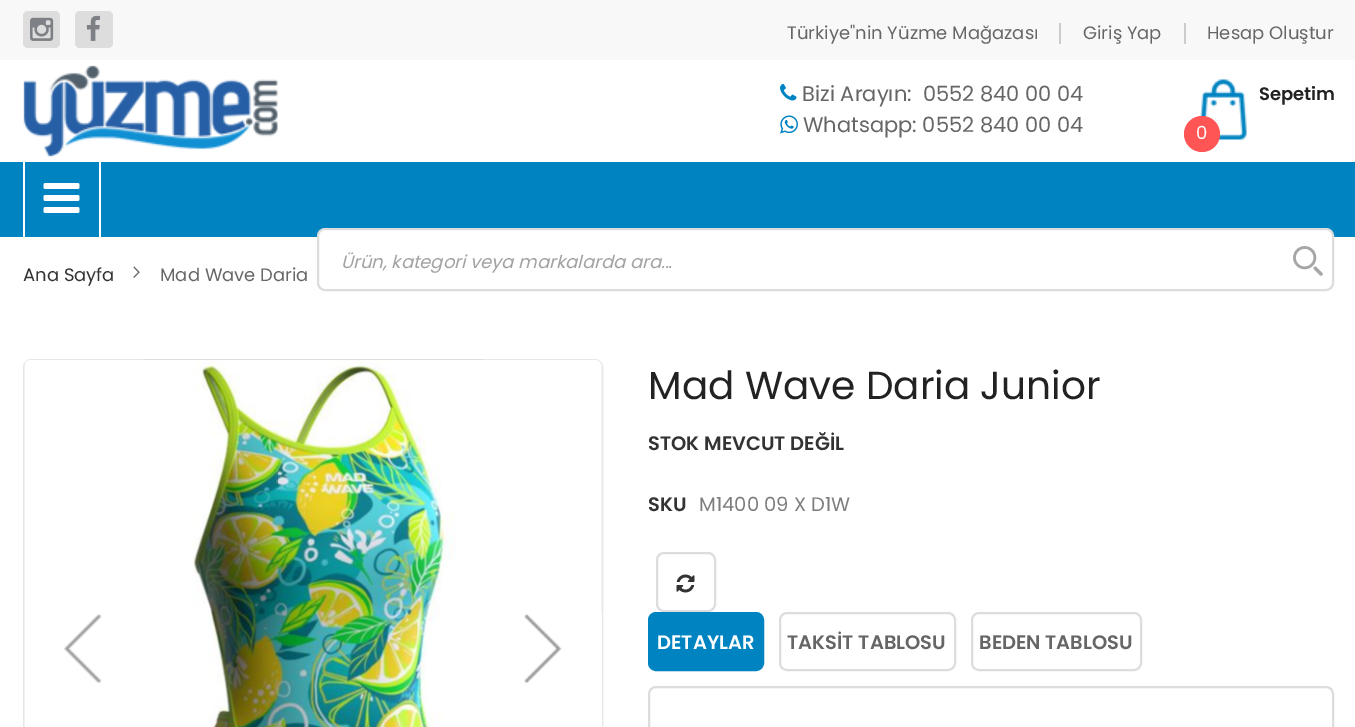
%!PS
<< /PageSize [1355 727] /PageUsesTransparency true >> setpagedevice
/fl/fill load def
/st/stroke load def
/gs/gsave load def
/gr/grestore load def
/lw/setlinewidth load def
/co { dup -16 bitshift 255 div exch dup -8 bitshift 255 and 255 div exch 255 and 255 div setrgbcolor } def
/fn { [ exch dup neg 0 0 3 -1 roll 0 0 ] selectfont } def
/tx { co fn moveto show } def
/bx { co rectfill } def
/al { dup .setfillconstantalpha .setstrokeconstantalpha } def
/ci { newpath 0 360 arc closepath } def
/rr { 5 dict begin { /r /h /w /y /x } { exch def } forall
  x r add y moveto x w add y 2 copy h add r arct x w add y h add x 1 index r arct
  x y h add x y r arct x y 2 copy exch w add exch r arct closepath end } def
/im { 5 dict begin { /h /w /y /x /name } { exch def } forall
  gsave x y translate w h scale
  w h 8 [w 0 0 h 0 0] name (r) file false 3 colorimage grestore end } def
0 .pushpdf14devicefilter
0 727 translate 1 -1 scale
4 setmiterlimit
0 0 1355 727 16#FFFFFF bx
0 0 1355 60 16#F8F8F8 bx
16#DDDDDD co
23 11 37 37 5 rr fl
(media/1.raw) 30 17 24 24 im
75 11 38 37 5 rr fl
(media/2.raw) 86 15 14 26 im
1059 23 2 21 16#CCCCCC bx
1184 23 2 21 16#CCCCCC bx
(media/3.raw) 23 65 255 92 im
(media/4.raw) 780 84 17 17 im
(media/5.raw) 780 115 18 19 im
(media/6.raw) 1200 79 47 61 im
16#FF5555 co
1202 134 18 ci fl
0 162 1355 75 16#0083C1 bx
16#FFFFFF co
318 229 1015 61 7 rr gs fl gr
16#DDDDDD co
2 lw
st
(media/7.raw) 1293 246 30 30 im
99 162 2 75 16#FFFFFF bx
23 162 2 75 16#FFFFFF bx
(media/8.raw) 43 183 37 30 im
(media/9.raw) 133 266 7 12 im
16#DDDDDD co
24 360 578 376 7 rr st
(media/10.raw) 24 360 578 367 im
0.3 al
23 359 120 368 16#FFFFFF bx
1 al
(media/11.raw) 64 614 38 69 im
0.3 al
483 359 120 368 16#FFFFFF bx
1 al
(media/12.raw) 524 614 38 69 im
16#DDDDDD co
657 553 58 58 7 rr st
(media/13.raw) 676 574 19 19 im
16#0083C1 co
649 613 114 57 7 rr gs fl gr
st
16#DDDDDD co
780 613 175 57 7 rr st
972 613 169 57 7 rr st
649 687 684 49 7 rr st
(Türkiye"nin Yüzme Mağazası) 787 39 /Poppins-Regular 18 16#666666 tx
(Giriş Yap) 1083 39 /Poppins-Regular 18 16#666666 tx
(Hesap Oluştur) 1207 39 /Poppins-Regular 18 16#666666 tx
(Bizi Arayın:  0552 840 00 04) 802 101 /Poppins-Regular 21 16#666666 tx
(Whatsapp: 0552 840 00 04) 803 132 /Poppins-Regular 21 16#666666 tx
(Sepetim) 1259 100 /Poppins-SemiBold 18 16#222222 tx
(0) 1196 139 /Poppins-Regular 18 16#FFFFFF tx
(Ürün, kategori veya markalarda ara...) 341 268 /Poppins-Italic 18 16#A2A2A2 tx
(Ana Sayfa) 23 281 /Poppins-Regular 18 16#333333 tx
(Mad Wave Daria) 160 281 /Poppins-Regular 18 16#666666 tx
(Mad Wave Daria Junior) 648 399 /Poppins-Regular 39 16#222222 tx
(STOK MEVCUT DEĞİL) 648 450 /Poppins-SemiBold 19.5 16#333333 tx
(SKU) 648 511 /Poppins-SemiBold 19.5 16#333333 tx
(M1400 09 X D1W) 699 511 /Poppins-Regular 19.5 16#7D7D7D tx
(DETAYLAR) 657 649 /Poppins-SemiBold 19.5 16#FFFFFF tx
(TAKSİT TABLOSU) 787 649 /Poppins-SemiBold 19.5 16#666666 tx
(BEDEN TABLOSU) 979 649 /Poppins-SemiBold 19.5 16#666666 tx
.poppdf14devicefilter showpage
